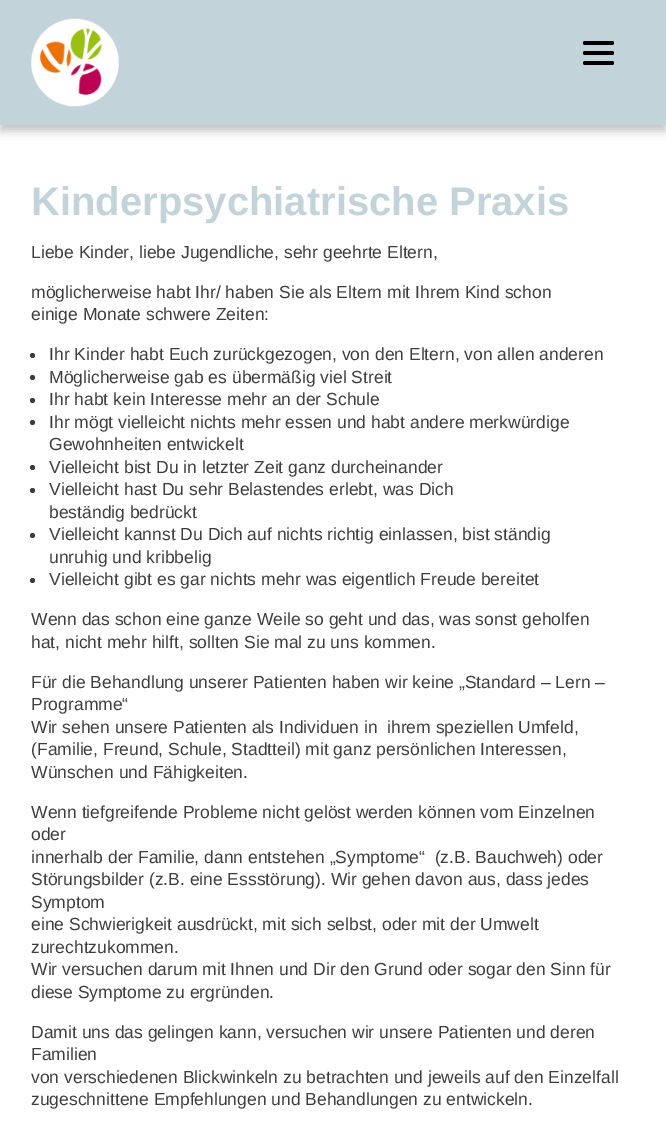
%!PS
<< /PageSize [666 1138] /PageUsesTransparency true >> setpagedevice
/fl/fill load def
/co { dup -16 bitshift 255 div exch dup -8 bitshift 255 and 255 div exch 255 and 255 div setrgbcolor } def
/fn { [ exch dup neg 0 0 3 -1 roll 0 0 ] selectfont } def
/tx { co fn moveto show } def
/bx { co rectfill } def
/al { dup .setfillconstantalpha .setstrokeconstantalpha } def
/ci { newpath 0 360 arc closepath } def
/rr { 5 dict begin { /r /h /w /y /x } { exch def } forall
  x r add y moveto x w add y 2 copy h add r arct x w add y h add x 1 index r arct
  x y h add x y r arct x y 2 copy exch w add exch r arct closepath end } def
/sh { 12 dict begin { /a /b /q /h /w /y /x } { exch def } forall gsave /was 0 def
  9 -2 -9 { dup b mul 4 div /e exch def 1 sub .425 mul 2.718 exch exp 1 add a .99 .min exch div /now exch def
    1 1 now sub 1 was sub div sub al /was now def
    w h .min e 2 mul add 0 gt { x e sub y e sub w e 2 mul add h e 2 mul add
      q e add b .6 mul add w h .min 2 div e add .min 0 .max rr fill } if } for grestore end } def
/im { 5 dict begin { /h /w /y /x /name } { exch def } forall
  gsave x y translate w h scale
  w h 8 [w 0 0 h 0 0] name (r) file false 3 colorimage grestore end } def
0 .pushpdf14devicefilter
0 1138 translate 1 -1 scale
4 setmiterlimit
0 0 666 1138 16#FFFFFF bx
16#C2C2C2 co
0 6 666 125 0 4.5 1 sh
0 0 666 125 16#C3D3DA bx
(media/1.raw) 31 18 88 89 im
16#000000 co
583 51 31 4 2 rr fl
583 41 31 4 2 rr fl
583 61 31 4 2 rr fl
16#3D3D3D co
32.5 355.5 2.5 ci fl
32.5 377.5 2.5 ci fl
32.5 400.5 2.5 ci fl
32.5 422.5 2.5 ci fl
32.5 467.5 2.5 ci fl
32.5 490.5 2.5 ci fl
32.5 535.5 2.5 ci fl
32.5 580.5 2.5 ci fl
(Kinderpsychiatrische Praxis) 31 215 /LiberationSans-Bold 40 16#C3D3DA tx
(Liebe Kinder, liebe Jugendliche, sehr geehrte Eltern,) 31 258 /LiberationSans-Regular 17.5 16#3D3D3D tx
(möglicherweise habt Ihr/ haben Sie als Eltern mit Ihrem Kind schon) 31 298 /LiberationSans-Regular 17.5 16#3D3D3D tx
(einige Monate schwere Zeiten:) 31 320 /LiberationSans-Regular 17.5 16#3D3D3D tx
(Ihr Kinder habt Euch zurückgezogen, von den Eltern, von allen anderen) 49 360 /LiberationSans-Regular 17.5 16#3D3D3D tx
(Möglicherweise gab es übermäßig viel Streit) 49 383 /LiberationSans-Regular 17.5 16#3D3D3D tx
(Ihr habt kein Interesse mehr an der Schule) 49 405 /LiberationSans-Regular 17.5 16#3D3D3D tx
(Ihr mögt vielleicht nichts mehr essen und habt andere merkwürdige) 49 428 /LiberationSans-Regular 17.5 16#3D3D3D tx
(Gewohnheiten entwickelt) 49 450 /LiberationSans-Regular 17.5 16#3D3D3D tx
(Vielleicht bist Du in letzter Zeit ganz durcheinander) 49 473 /LiberationSans-Regular 17.5 16#3D3D3D tx
(Vielleicht hast Du sehr Belastendes erlebt, was Dich) 49 495 /LiberationSans-Regular 17.5 16#3D3D3D tx
(beständig bedrückt) 49 518 /LiberationSans-Regular 17.5 16#3D3D3D tx
(Vielleicht kannst Du Dich auf nichts richtig einlassen, bist ständig) 49 540 /LiberationSans-Regular 17.5 16#3D3D3D tx
(unruhig und kribbelig) 49 563 /LiberationSans-Regular 17.5 16#3D3D3D tx
(Vielleicht gibt es gar nichts mehr was eigentlich Freude bereitet) 49 585 /LiberationSans-Regular 17.5 16#3D3D3D tx
(Wenn das schon eine ganze Weile so geht und das, was sonst geholfen) 31 625 /LiberationSans-Regular 17.5 16#3D3D3D tx
(hat, nicht mehr hilft, sollten Sie mal zu uns kommen.) 31 648 /LiberationSans-Regular 17.5 16#3D3D3D tx
(Für die Behandlung unserer Patienten haben wir keine „Standard – Lern –) 31 688 /LiberationSans-Regular 17.5 16#3D3D3D tx
(Programme“) 31 710 /LiberationSans-Regular 17.5 16#3D3D3D tx
(Wir sehen unsere Patienten als Individuen in  ihrem speziellen Umfeld,) 31 733 /LiberationSans-Regular 17.5 16#3D3D3D tx
(\(Familie, Freund, Schule, Stadtteil\) mit ganz persönlichen Interessen,) 31 755 /LiberationSans-Regular 17.5 16#3D3D3D tx
(Wünschen und Fähigkeiten.) 31 778 /LiberationSans-Regular 17.5 16#3D3D3D tx
(Wenn tiefgreifende Probleme nicht gelöst werden können vom Einzelnen) 31 818 /LiberationSans-Regular 17.5 16#3D3D3D tx
(oder) 31 840 /LiberationSans-Regular 17.5 16#3D3D3D tx
(innerhalb der Familie, dann entstehen „Symptome“  \(z.B. Bauchweh\) oder) 31 863 /LiberationSans-Regular 17.5 16#3D3D3D tx
(Störungsbilder \(z.B. eine Essstörung\). Wir gehen davon aus, dass jedes) 31 885 /LiberationSans-Regular 17.5 16#3D3D3D tx
(Symptom) 31 908 /LiberationSans-Regular 17.5 16#3D3D3D tx
(eine Schwierigkeit ausdrückt, mit sich selbst, oder mit der Umwelt) 31 930 /LiberationSans-Regular 17.5 16#3D3D3D tx
(zurechtzukommen.) 31 953 /LiberationSans-Regular 17.5 16#3D3D3D tx
(Wir versuchen darum mit Ihnen und Dir den Grund oder sogar den Sinn für) 31 975 /LiberationSans-Regular 17.5 16#3D3D3D tx
(diese Symptome zu ergründen.) 31 998 /LiberationSans-Regular 17.5 16#3D3D3D tx
(Damit uns das gelingen kann, versuchen wir unsere Patienten und deren) 31 1038 /LiberationSans-Regular 17.5 16#3D3D3D tx
(Familien) 31 1060 /LiberationSans-Regular 17.5 16#3D3D3D tx
(von verschiedenen Blickwinkeln zu betrachten und jeweils auf den Einzelfall) 31 1083 /LiberationSans-Regular 17.5 16#3D3D3D tx
(zugeschnittene Empfehlungen und Behandlungen zu entwickeln.) 31 1105 /LiberationSans-Regular 17.5 16#3D3D3D tx
.poppdf14devicefilter showpage
